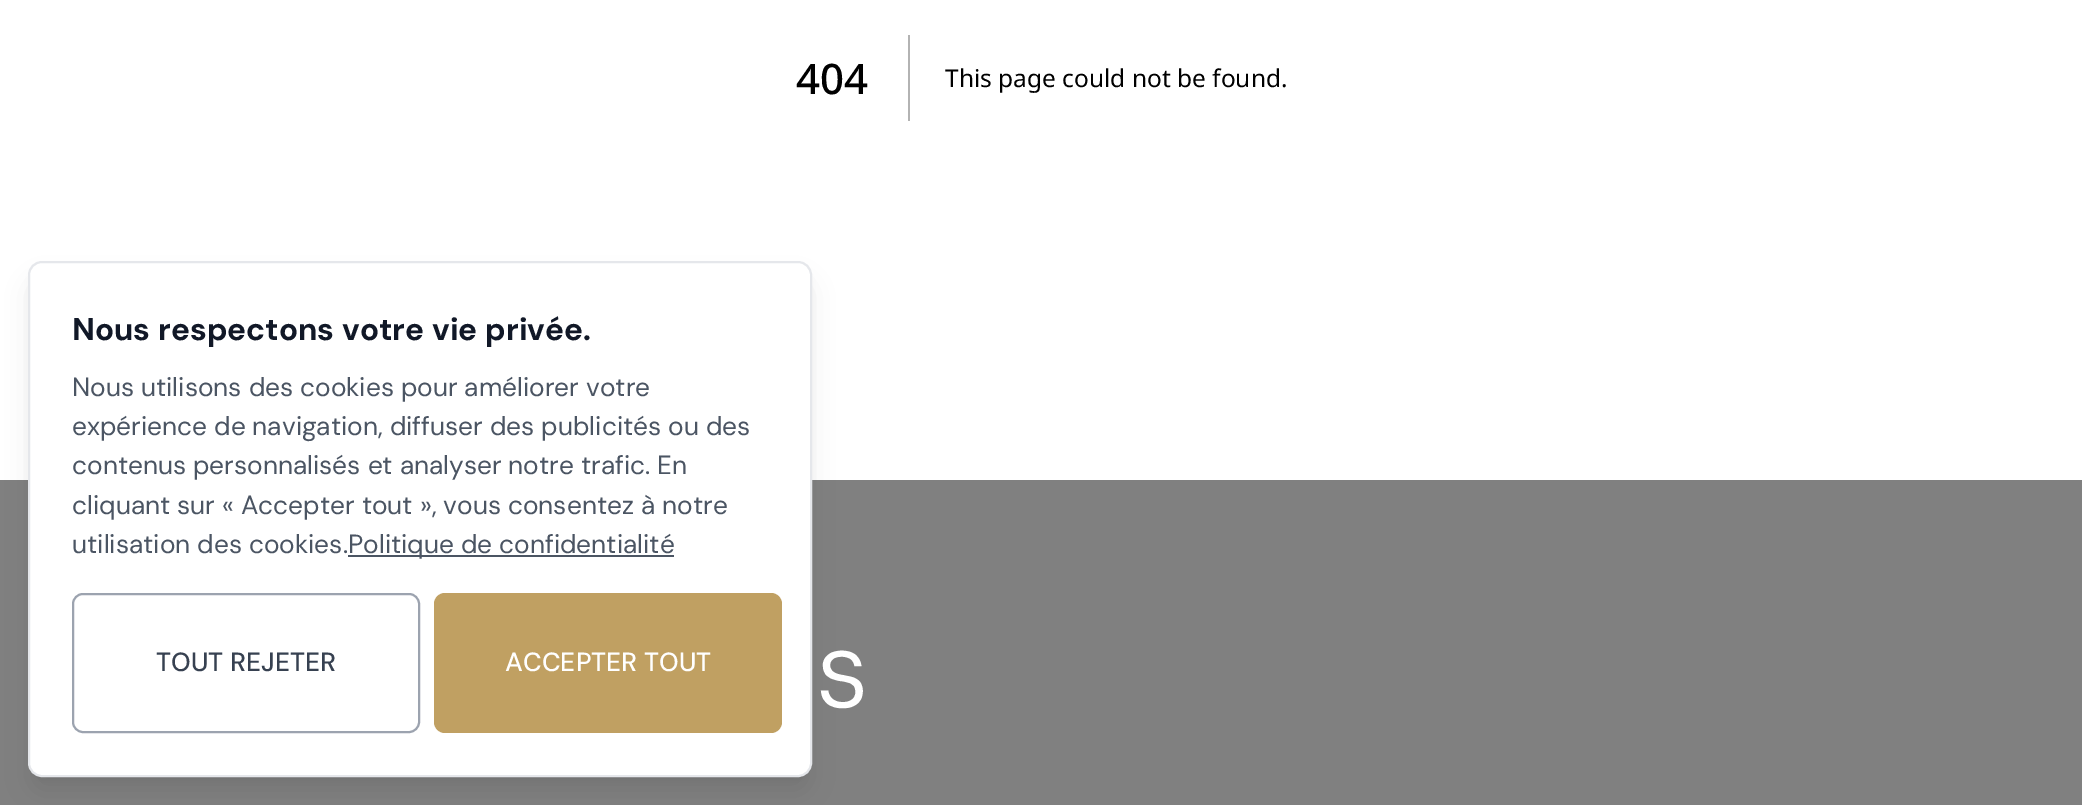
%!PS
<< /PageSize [2082 805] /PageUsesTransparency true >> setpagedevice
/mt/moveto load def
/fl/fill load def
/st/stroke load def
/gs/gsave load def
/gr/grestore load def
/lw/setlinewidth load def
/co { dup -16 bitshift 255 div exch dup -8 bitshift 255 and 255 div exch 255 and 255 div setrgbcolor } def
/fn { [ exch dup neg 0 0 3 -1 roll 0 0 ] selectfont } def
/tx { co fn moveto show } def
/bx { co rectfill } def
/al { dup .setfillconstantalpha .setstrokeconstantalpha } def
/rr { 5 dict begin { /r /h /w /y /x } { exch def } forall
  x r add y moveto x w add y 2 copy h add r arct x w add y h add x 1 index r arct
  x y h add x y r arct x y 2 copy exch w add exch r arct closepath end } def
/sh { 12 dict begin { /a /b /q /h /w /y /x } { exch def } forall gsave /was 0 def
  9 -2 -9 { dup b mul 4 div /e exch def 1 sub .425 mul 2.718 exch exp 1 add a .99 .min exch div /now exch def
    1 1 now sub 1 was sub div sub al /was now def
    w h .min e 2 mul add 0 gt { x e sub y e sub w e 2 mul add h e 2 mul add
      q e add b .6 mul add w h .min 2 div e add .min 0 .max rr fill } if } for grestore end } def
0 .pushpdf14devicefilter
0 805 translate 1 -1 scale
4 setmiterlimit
0 0 2082 805 16#FFFFFF bx
908 35 2 86 16#B3B3B3 bx
0 480 2082 325 16#808080 bx
16#000000 co
35 275 770 502 7 5 .1 sh
33 284 774 505 9 13 .1 sh
16#FFFFFF co
29 262 782 514 13 rr gs fl gr
16#E5E7EB co
2 lw
st
348 555 326 2 16#4B5563 bx
16#9CA3AF co
73 594 346 138 10 rr st
16#C0A062 co
434 593 348 140 11 rr fl
(404) 796 94 /NotoSans-Medium 42 16#000000 tx
(This page could not be found.) 945 87 /NotoSans-Regular 24.5 16#000000 tx
/DMSans-Bold 31.5 fn
16#111827 co
72 340 mt .5 0 32 (Nous respectons votre vie privée.) widthshow
(Nous utilisons des cookies pour améliorer votre) 72 396 /DMSans-Regular 26.25 16#4B5563 tx
(expérience de navigation, diffuser des publicités ou des) 72 435 /DMSans-Regular 26.25 16#4B5563 tx
(contenus personnalisés et analyser notre trafic. En) 72 474 /DMSans-Regular 26.25 16#4B5563 tx
(cliquant sur « Accepter tout », vous consentez à notre) 72 514 /DMSans-Regular 26.25 16#4B5563 tx
(utilisation des cookies.) 72 553 /DMSans-Regular 26.25 16#4B5563 tx
(Politique de confidentialité) 348 553 /DMSans-Regular 26.25 16#4B5563 tx
(TOUT REJETER) 156 671 /DMSans-Medium 26.25 16#374151 tx
(ACCEPTER TOUT) 505 671 /DMSans-Medium 26.25 16#FFFFFF tx
/DMSans-Light 105 fn
816 707 mt -2 0 32 (s) widthshow
.poppdf14devicefilter showpage
